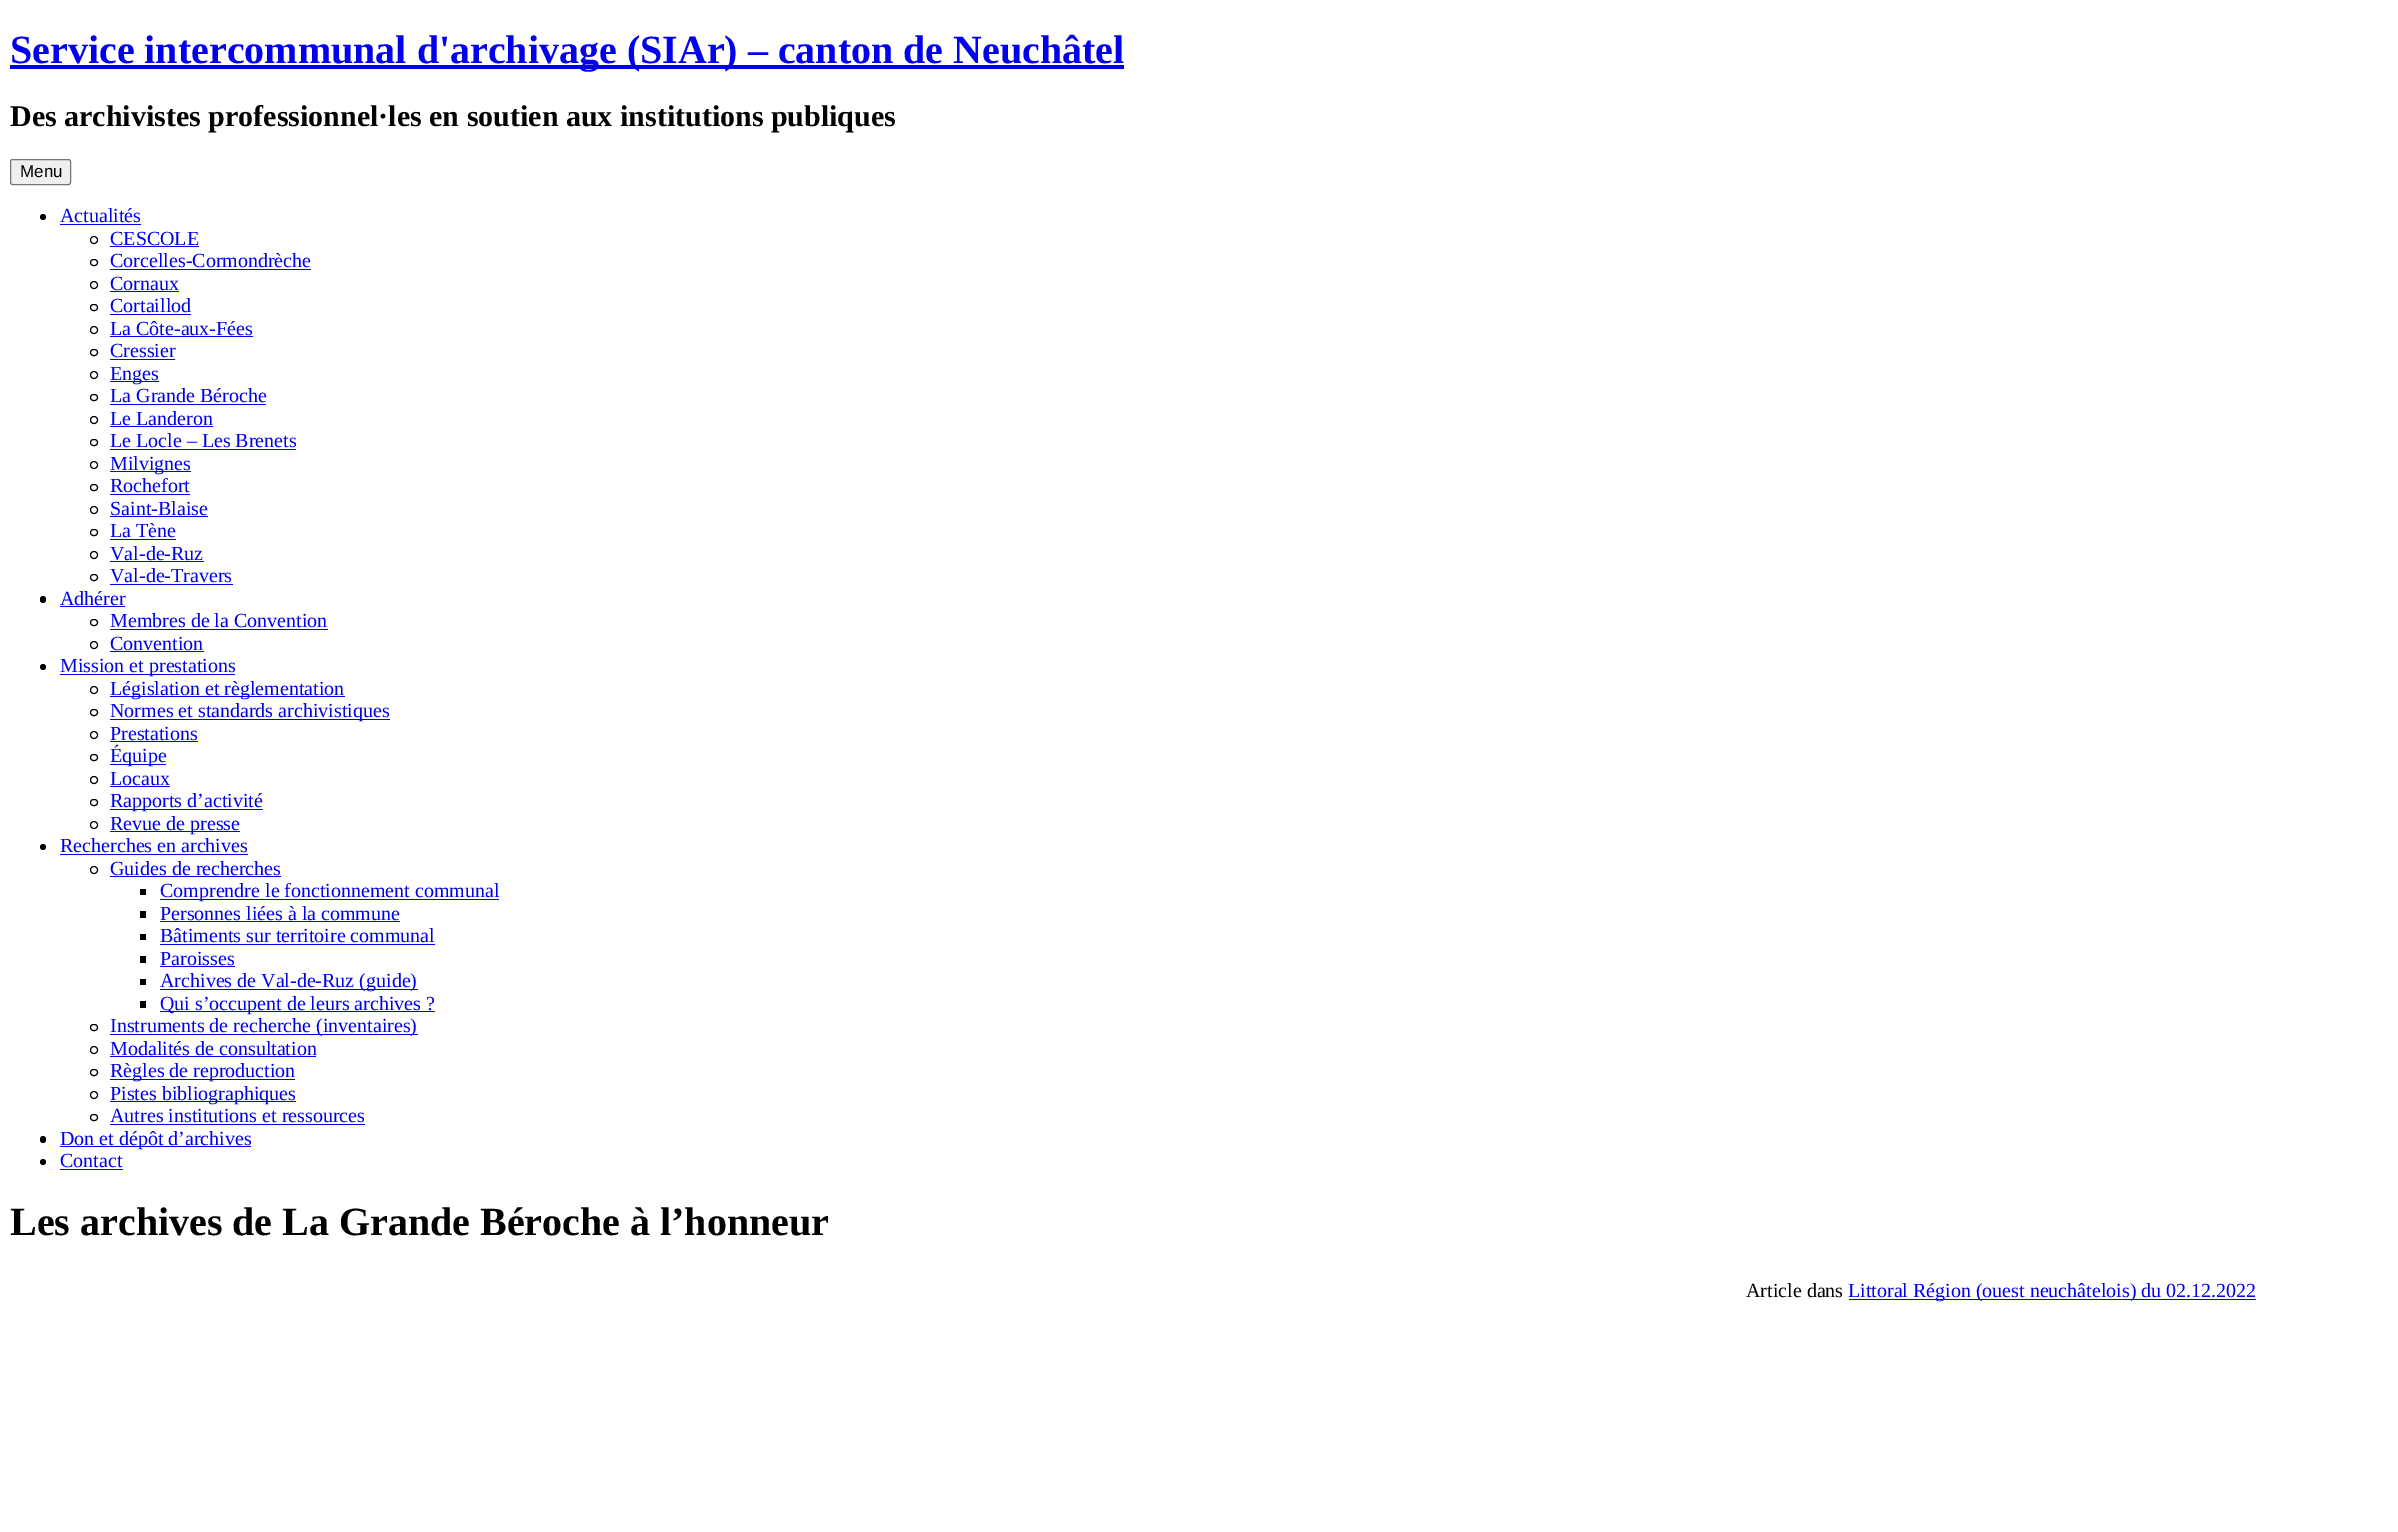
%!PS
<< /PageSize [2398 1532] >> setpagedevice
/fl/fill load def
/st/stroke load def
/gs/gsave load def
/gr/grestore load def
/co { dup -16 bitshift 255 div exch dup -8 bitshift 255 and 255 div exch 255 and 255 div setrgbcolor } def
/fn { [ exch dup neg 0 0 3 -1 roll 0 0 ] selectfont } def
/tx { co fn moveto show } def
/bx { co rectfill } def
/ci { newpath 0 360 arc closepath } def
/rr { 5 dict begin { /r /h /w /y /x } { exch def } forall
  x r add y moveto x w add y 2 copy h add r arct x w add y h add x 1 index r arct
  x y h add x y r arct x y 2 copy exch w add exch r arct closepath end } def
0 1532 translate 1 -1 scale
4 setmiterlimit
0 0 2398 1532 16#FFFFFF bx
10 65 1114 4 16#0000EE bx
16#EFEFEF co
10.5 159.5 60 25 2 rr gs fl gr
16#767676 co
st
16#000000 co
43 217 3 ci fl
60 224 81 1 16#0000EE bx
16#000000 co
94 240 3.5 ci st
110 246 89 1 16#0000EE bx
16#000000 co
90.5 259.5 7 6 3 rr st
110 269 201 1 16#0000EE bx
16#000000 co
94 285 3.5 ci st
110 291 69 1 16#0000EE bx
16#000000 co
90.5 304.5 7 6 3 rr st
110 314 81 1 16#0000EE bx
16#000000 co
94 330 3.5 ci st
110 336 143 1 16#0000EE bx
16#000000 co
90.5 349.5 7 6 3 rr st
110 359 65 1 16#0000EE bx
16#000000 co
94 375 3.5 ci st
110 381 49 1 16#0000EE bx
16#000000 co
90.5 394.5 7 6 3 rr st
110 404 156 1 16#0000EE bx
16#000000 co
94 420 3.5 ci st
110 426 103 1 16#0000EE bx
16#000000 co
90.5 439.5 7 6 3 rr st
110 449 186 1 16#0000EE bx
16#000000 co
94 465 3.5 ci st
110 471 81 1 16#0000EE bx
16#000000 co
90.5 484.5 7 6 3 rr st
110 494 80 1 16#0000EE bx
16#000000 co
94 510 3.5 ci st
110 516 98 1 16#0000EE bx
16#000000 co
90.5 529.5 7 6 3 rr st
110 539 66 1 16#0000EE bx
16#000000 co
94 555 3.5 ci st
110 561 94 1 16#0000EE bx
16#000000 co
90.5 574.5 7 6 3 rr st
110 584 123 1 16#0000EE bx
16#000000 co
40 596 6 7 3 rr fl
60 606 65 1 16#0000EE bx
16#000000 co
90.5 619.5 7 6 3 rr st
110 629 218 1 16#0000EE bx
16#000000 co
94 645 3.5 ci st
110 651 94 1 16#0000EE bx
16#000000 co
43 667 3 ci fl
60 674 175 1 16#0000EE bx
16#000000 co
94 690 3.5 ci st
110 696 235 1 16#0000EE bx
16#000000 co
90.5 709.5 7 6 3 rr st
110 719 280 1 16#0000EE bx
16#000000 co
94 735 3.5 ci st
110 741 88 1 16#0000EE bx
16#000000 co
90.5 754.5 7 6 3 rr st
110 764 56 1 16#0000EE bx
16#000000 co
94 780 3.5 ci st
110 786 60 1 16#0000EE bx
16#000000 co
90.5 799.5 7 6 3 rr st
110 809 153 1 16#0000EE bx
16#000000 co
94 825 3.5 ci st
110 831 130 1 16#0000EE bx
16#000000 co
43 847 3 ci fl
60 854 188 1 16#0000EE bx
16#000000 co
94 870 3.5 ci st
110 876 171 1 16#0000EE bx
140 889 6 6 16#000000 bx
160 899 339 1 16#0000EE bx
140 911 6 7 16#000000 bx
160 921 240 1 16#0000EE bx
140 934 6 6 16#000000 bx
160 944 275 1 16#0000EE bx
140 956 6 7 16#000000 bx
160 966 75 1 16#0000EE bx
140 979 6 6 16#000000 bx
160 989 258 1 16#0000EE bx
140 1001 6 7 16#000000 bx
160 1011 275 1 16#0000EE bx
16#000000 co
90.5 1024.5 7 6 3 rr st
110 1034 308 1 16#0000EE bx
16#000000 co
94 1050 3.5 ci st
110 1056 206 1 16#0000EE bx
16#000000 co
90.5 1069.5 7 6 3 rr st
110 1079 185 1 16#0000EE bx
16#000000 co
94 1095 3.5 ci st
110 1101 186 1 16#0000EE bx
16#000000 co
90.5 1114.5 7 6 3 rr st
110 1124 255 1 16#0000EE bx
16#000000 co
40 1136 6 7 3 rr fl
60 1146 191 1 16#0000EE bx
16#000000 co
43 1162 3 ci fl
60 1169 63 1 16#0000EE bx
1849 1299 407 1 16#0000EE bx
(Service intercommunal d'archivage \(SIAr\) – canton de Neuchâtel) 10 63 /LiberationSerif-Bold 40 16#0000EE tx
(Des archivistes professionnel·les en soutien aux institutions publiques) 10 126 /LiberationSerif-Bold 30 16#000000 tx
(Menu) 20 177 /LiberationSans-Regular 17 16#000000 tx
(Actualités) 60 222 /LiberationSerif-Regular 20 16#0000EE tx
(CESCOLE) 110 245 /LiberationSerif-Regular 20 16#0000EE tx
(Corcelles-Cormondrèche) 110 267 /LiberationSerif-Regular 20 16#0000EE tx
(Cornaux) 110 290 /LiberationSerif-Regular 20 16#0000EE tx
(Cortaillod) 110 312 /LiberationSerif-Regular 20 16#0000EE tx
(La Côte-aux-Fées) 110 335 /LiberationSerif-Regular 20 16#0000EE tx
(Cressier) 110 357 /LiberationSerif-Regular 20 16#0000EE tx
(Enges) 110 380 /LiberationSerif-Regular 20 16#0000EE tx
(La Grande Béroche) 110 402 /LiberationSerif-Regular 20 16#0000EE tx
(Le Landeron) 110 425 /LiberationSerif-Regular 20 16#0000EE tx
(Le Locle – Les Brenets) 110 447 /LiberationSerif-Regular 20 16#0000EE tx
(Milvignes) 110 470 /LiberationSerif-Regular 20 16#0000EE tx
(Rochefort) 110 492 /LiberationSerif-Regular 20 16#0000EE tx
(Saint-Blaise) 110 515 /LiberationSerif-Regular 20 16#0000EE tx
(La Tène) 110 537 /LiberationSerif-Regular 20 16#0000EE tx
(Val-de-Ruz) 110 560 /LiberationSerif-Regular 20 16#0000EE tx
(Val-de-Travers) 110 582 /LiberationSerif-Regular 20 16#0000EE tx
(Adhérer) 60 605 /LiberationSerif-Regular 20 16#0000EE tx
(Membres de la Convention) 110 627 /LiberationSerif-Regular 20 16#0000EE tx
(Convention) 110 650 /LiberationSerif-Regular 20 16#0000EE tx
(Mission et prestations) 60 672 /LiberationSerif-Regular 20 16#0000EE tx
(Législation et règlementation) 110 695 /LiberationSerif-Regular 20 16#0000EE tx
(Normes et standards archivistiques) 110 717 /LiberationSerif-Regular 20 16#0000EE tx
(Prestations) 110 740 /LiberationSerif-Regular 20 16#0000EE tx
(Équipe) 110 762 /LiberationSerif-Regular 20 16#0000EE tx
(Locaux) 110 785 /LiberationSerif-Regular 20 16#0000EE tx
(Rapports d’activité) 110 807 /LiberationSerif-Regular 20 16#0000EE tx
(Revue de presse) 110 830 /LiberationSerif-Regular 20 16#0000EE tx
(Recherches en archives) 60 852 /LiberationSerif-Regular 20 16#0000EE tx
(Guides de recherches) 110 875 /LiberationSerif-Regular 20 16#0000EE tx
(Comprendre le fonctionnement communal) 160 897 /LiberationSerif-Regular 20 16#0000EE tx
(Personnes liées à la commune) 160 920 /LiberationSerif-Regular 20 16#0000EE tx
(Bâtiments sur territoire communal) 160 942 /LiberationSerif-Regular 20 16#0000EE tx
(Paroisses) 160 965 /LiberationSerif-Regular 20 16#0000EE tx
(Archives de Val-de-Ruz \(guide\)) 160 987 /LiberationSerif-Regular 20 16#0000EE tx
(Qui s’occupent de leurs archives ?) 160 1010 /LiberationSerif-Regular 20 16#0000EE tx
(Instruments de recherche \(inventaires\)) 110 1032 /LiberationSerif-Regular 20 16#0000EE tx
(Modalités de consultation) 110 1055 /LiberationSerif-Regular 20 16#0000EE tx
(Règles de reproduction) 110 1077 /LiberationSerif-Regular 20 16#0000EE tx
(Pistes bibliographiques) 110 1100 /LiberationSerif-Regular 20 16#0000EE tx
(Autres institutions et ressources) 110 1122 /LiberationSerif-Regular 20 16#0000EE tx
(Don et dépôt d’archives) 60 1145 /LiberationSerif-Regular 20 16#0000EE tx
(Contact) 60 1167 /LiberationSerif-Regular 20 16#0000EE tx
(Les archives de La Grande Béroche à l’honneur) 10 1235 /LiberationSerif-Bold 40 16#000000 tx
(Article dans) 1746 1297 /LiberationSerif-Regular 20 16#000000 tx
(Littoral Région \(ouest neuchâtelois\) du 02.12.2022) 1848 1297 /LiberationSerif-Regular 20 16#0000EE tx
showpage
